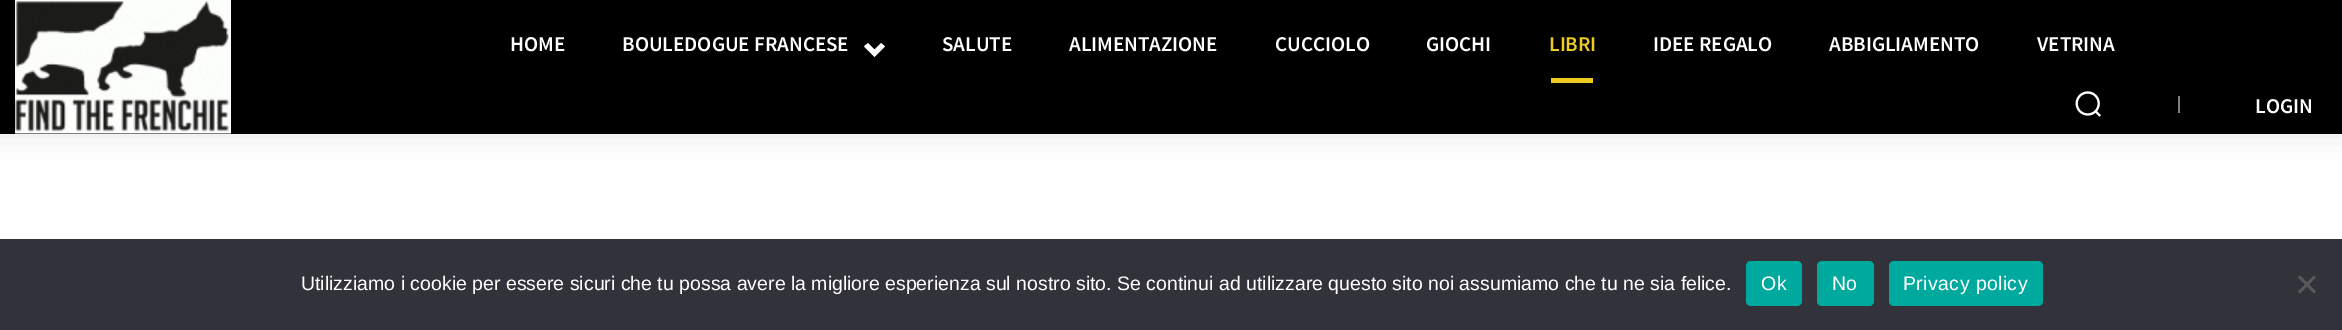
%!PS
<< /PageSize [2342 330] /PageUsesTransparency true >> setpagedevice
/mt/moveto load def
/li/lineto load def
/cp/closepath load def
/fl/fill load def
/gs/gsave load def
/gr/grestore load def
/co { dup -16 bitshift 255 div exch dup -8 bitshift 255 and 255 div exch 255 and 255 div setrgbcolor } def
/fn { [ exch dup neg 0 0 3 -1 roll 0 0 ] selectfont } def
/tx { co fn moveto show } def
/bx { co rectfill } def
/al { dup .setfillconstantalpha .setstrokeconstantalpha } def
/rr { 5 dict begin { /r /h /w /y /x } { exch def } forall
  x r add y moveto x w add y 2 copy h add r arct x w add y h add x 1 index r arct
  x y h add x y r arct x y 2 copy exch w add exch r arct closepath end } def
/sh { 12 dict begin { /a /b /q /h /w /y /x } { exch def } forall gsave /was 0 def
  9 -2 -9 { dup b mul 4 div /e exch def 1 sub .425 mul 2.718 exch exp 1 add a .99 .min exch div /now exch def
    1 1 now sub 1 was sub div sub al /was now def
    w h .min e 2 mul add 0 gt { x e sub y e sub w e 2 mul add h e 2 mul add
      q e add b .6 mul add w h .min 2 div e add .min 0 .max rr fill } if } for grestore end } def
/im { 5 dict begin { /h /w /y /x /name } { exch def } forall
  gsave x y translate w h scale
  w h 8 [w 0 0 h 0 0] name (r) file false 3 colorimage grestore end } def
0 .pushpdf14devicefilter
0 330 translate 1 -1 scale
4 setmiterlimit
0 0 2342 330 16#FFFFFF bx
0 0 2342 134 16#000000 bx
gs
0 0 mt 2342 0 li 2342 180 li 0 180 li cp -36 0 mt 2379 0 li 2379 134 li -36 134 li cp eoclip newpath
-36 0 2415 134 0 15 .1 sh
gr
(media/1.raw) 15 0 216 134 im
16#FFFFFF co
868 43 mt 874.5 49.5 li 881 43 li 885 46.5 li 874.5 57 li 864 46.5 li cp fl
1551 78 42 5 16#EDCB21 bx
(media/2.raw) 2075 91 26 26 im
2178 96 2 17 16#808080 bx
0 239 2342 91 16#32323A bx
16#00A99D co
1746 261 56 45 5 rr fl
1817 261 57 45 5 rr fl
1889 261 154 45 5 rr fl
16#59595D co
2314 275.5 mt 2316 277.5 li 2300 293.5 li 2298 291.5 li cp fl
2298 277.5 mt 2300 275.5 li 2316 291.5 li 2314 293.5 li cp fl
(HOME) 510 51 /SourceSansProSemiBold-SemiBold 21 16#FFFFFF tx
(BOULEDOGUE FRANCESE) 622 51 /SourceSansProSemiBold-SemiBold 21 16#FFFFFF tx
(SALUTE) 942 51 /SourceSansProSemiBold-SemiBold 21 16#FFFFFF tx
(ALIMENTAZIONE) 1069 51 /SourceSansProSemiBold-SemiBold 21 16#FFFFFF tx
(CUCCIOLO) 1275 51 /SourceSansProSemiBold-SemiBold 21 16#FFFFFF tx
(GIOCHI) 1426 51 /SourceSansProSemiBold-SemiBold 21 16#FFFFFF tx
(LIBRI) 1549 51 /SourceSansProSemiBold-SemiBold 21 16#EDCB21 tx
(IDEE REGALO) 1653 51 /SourceSansProSemiBold-SemiBold 21 16#FFFFFF tx
(ABBIGLIAMENTO) 1829 51 /SourceSansProSemiBold-SemiBold 21 16#FFFFFF tx
(VETRINA) 2037 51 /SourceSansProSemiBold-SemiBold 21 16#FFFFFF tx
(LOGIN) 2255 113 /SourceSansProSemiBold-SemiBold 21 16#FFFFFF tx
(Utilizziamo i cookie per essere sicuri che tu possa avere la migliore esperienza sul nostro sito. Se continui ad utilizzare questo sito noi assumiamo che tu ne sia felice.) 301 290 /LiberationSans-Regular 19.5 16#FFFFFF tx
1761 290 mt .4 0 (Ok) ashow
1832 290 mt .4 0 (No) ashow
1903 290 mt .4 0 (Privacy policy) ashow
.poppdf14devicefilter showpage
